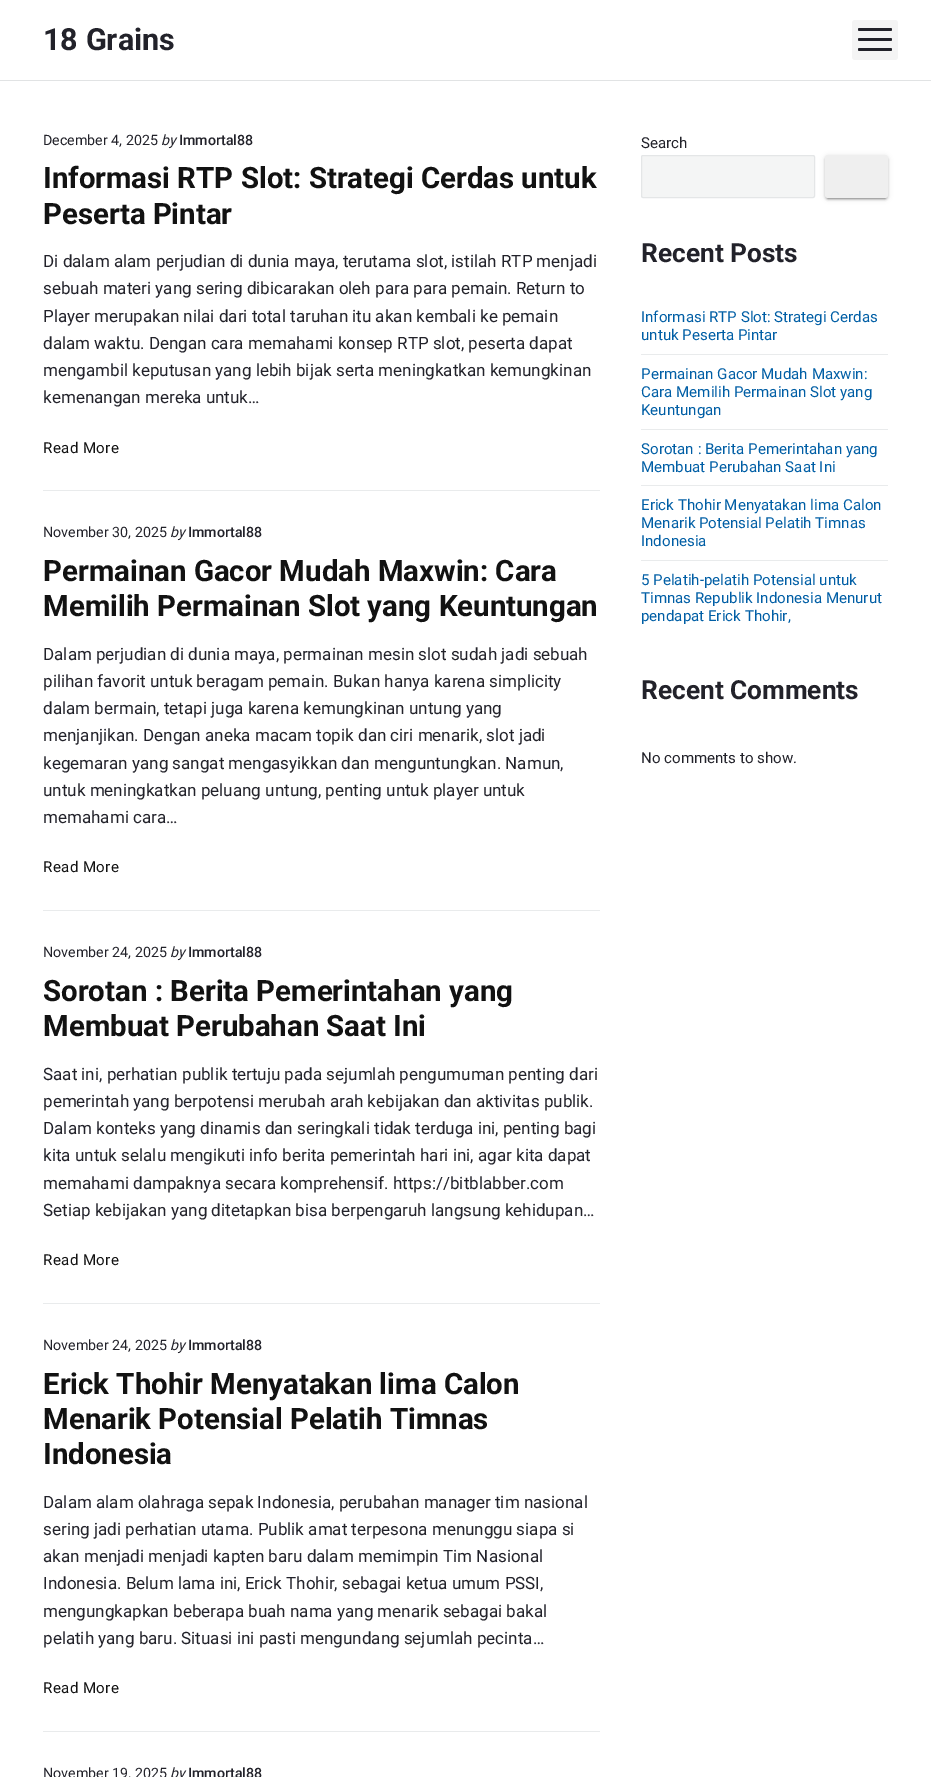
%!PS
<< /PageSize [931 1777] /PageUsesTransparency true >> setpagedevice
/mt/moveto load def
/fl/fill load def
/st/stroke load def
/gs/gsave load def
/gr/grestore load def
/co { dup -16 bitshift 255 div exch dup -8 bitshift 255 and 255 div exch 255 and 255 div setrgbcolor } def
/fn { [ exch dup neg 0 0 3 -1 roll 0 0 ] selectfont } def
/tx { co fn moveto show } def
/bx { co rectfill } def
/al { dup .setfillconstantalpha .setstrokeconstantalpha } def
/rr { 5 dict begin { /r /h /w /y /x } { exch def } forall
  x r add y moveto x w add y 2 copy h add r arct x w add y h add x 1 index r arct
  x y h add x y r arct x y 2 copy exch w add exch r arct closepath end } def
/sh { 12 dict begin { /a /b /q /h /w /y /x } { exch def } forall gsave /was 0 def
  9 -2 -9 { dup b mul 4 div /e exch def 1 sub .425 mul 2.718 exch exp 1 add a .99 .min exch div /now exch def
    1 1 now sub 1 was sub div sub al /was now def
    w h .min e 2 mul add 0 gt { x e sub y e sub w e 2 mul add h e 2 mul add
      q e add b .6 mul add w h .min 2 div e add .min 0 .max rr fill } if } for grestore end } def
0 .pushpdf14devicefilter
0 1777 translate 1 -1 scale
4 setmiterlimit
0 0 931 1777 16#FFFFFF bx
16#F4F4F4 co
852 20 46 40 3 rr fl
16#22222A co
858 38 34 3 1.5 rr fl
858 28 34 3 1.5 rr fl
858 48 34 3 1.5 rr fl
0 80 931 1 16#E1E3E4 bx
43 490 557 1 16#E9EBEC bx
43 910 557 1 16#E9EBEC bx
43 1303 557 1 16#E9EBEC bx
43 1731 557 1 16#E9EBEC bx
16#F4F5F5 co
641.5 155.5 173 42 1.5 rr gs fl gr
16#E4E6E7 co
st
16#000000 co
825 156 63 43 3 2.5 .12 sh
827 160 59 39 1 .5 .2 sh
825 157 63 43 3 1 .14 sh
16#EFEFEF co
825 155 63 43 3 rr fl
641 354 247 1 16#E9EBEC bx
641 429 247 1 16#E9EBEC bx
641 485 247 1 16#E9EBEC bx
641 560 247 1 16#E9EBEC bx
(18 Grains) 43 50 /Roboto-Bold 30.5 16#22222A tx
(December 4, 2025) 43 145 /Roboto-Regular 14.25 16#22222A tx
(by) 161 145 /Roboto-Italic 14.25 16#22222A tx
(Immortal88) 179 145 /Roboto-Medium 14.25 16#22222A tx
(Informasi RTP Slot: Strategi Cerdas untuk) 43 188 /Roboto-Bold 29.4 16#121212 tx
(Peserta Pintar) 43 224 /Roboto-Bold 29.4 16#121212 tx
(Di dalam alam perjudian di dunia maya, terutama slot, istilah RTP menjadi) 43 267 /Roboto-Regular 17 16#22222A tx
(sebuah materi yang sering dibicarakan oleh para para pemain. Return to) 43 294 /Roboto-Regular 17 16#22222A tx
(Player merupakan nilai dari total taruhan itu akan kembali ke pemain) 43 322 /Roboto-Regular 17 16#22222A tx
(dalam waktu. Dengan cara memahami konsep RTP slot, peserta dapat) 43 349 /Roboto-Regular 17 16#22222A tx
(mengambil keputusan yang lebih bijak serta meningkatkan kemungkinan) 43 376 /Roboto-Regular 17 16#22222A tx
(kemenangan mereka untuk…) 43 403 /Roboto-Regular 17 16#22222A tx
/Roboto-Regular 15.1 fn
16#121212 co
43 453 mt .4 0 (Read More) ashow
(November 30, 2025) 43 537 /Roboto-Regular 14.25 16#22222A tx
(by) 170 537 /Roboto-Italic 14.25 16#22222A tx
(Immortal88) 188 537 /Roboto-Medium 14.25 16#22222A tx
(Permainan Gacor Mudah Maxwin: Cara) 43 581 /Roboto-Bold 29.4 16#121212 tx
(Memilih Permainan Slot yang Keuntungan) 43 616 /Roboto-Bold 29.4 16#121212 tx
(Dalam perjudian di dunia maya, permainan mesin slot sudah jadi sebuah) 43 660 /Roboto-Regular 17 16#22222A tx
(pilihan favorit untuk beragam pemain. Bukan hanya karena simplicity) 43 687 /Roboto-Regular 17 16#22222A tx
(dalam bermain, tetapi juga karena kemungkinan untung yang) 43 714 /Roboto-Regular 17 16#22222A tx
(menjanjikan. Dengan aneka macam topik dan ciri menarik, slot jadi) 43 741 /Roboto-Regular 17 16#22222A tx
(kegemaran yang sangat mengasyikkan dan menguntungkan. Namun,) 43 769 /Roboto-Regular 17 16#22222A tx
(untuk meningkatkan peluang untung, penting untuk player untuk) 43 796 /Roboto-Regular 17 16#22222A tx
(memahami cara…) 43 823 /Roboto-Regular 17 16#22222A tx
/Roboto-Regular 15.1 fn
16#121212 co
43 872 mt .4 0 (Read More) ashow
(November 24, 2025) 43 957 /Roboto-Regular 14.25 16#22222A tx
(by) 170 957 /Roboto-Italic 14.25 16#22222A tx
(Immortal88) 188 957 /Roboto-Medium 14.25 16#22222A tx
(Sorotan : Berita Pemerintahan yang) 43 1001 /Roboto-Bold 29.4 16#121212 tx
(Membuat Perubahan Saat Ini) 43 1036 /Roboto-Bold 29.4 16#121212 tx
(Saat ini, perhatian publik tertuju pada sejumlah pengumuman penting dari) 43 1080 /Roboto-Regular 17 16#22222A tx
(pemerintah yang berpotensi merubah arah kebijakan dan aktivitas publik.) 43 1107 /Roboto-Regular 17 16#22222A tx
(Dalam konteks yang dinamis dan seringkali tidak terduga ini, penting bagi) 43 1134 /Roboto-Regular 17 16#22222A tx
(kita untuk selalu mengikuti info berita pemerintah hari ini, agar kita dapat) 43 1161 /Roboto-Regular 17 16#22222A tx
(memahami dampaknya secara komprehensif. https://bitblabber.com) 43 1189 /Roboto-Regular 17 16#22222A tx
(Setiap kebijakan yang ditetapkan bisa berpengaruh langsung kehidupan…) 43 1216 /Roboto-Regular 17 16#22222A tx
/Roboto-Regular 15.1 fn
16#121212 co
43 1265 mt .4 0 (Read More) ashow
(November 24, 2025) 43 1350 /Roboto-Regular 14.25 16#22222A tx
(by) 170 1350 /Roboto-Italic 14.25 16#22222A tx
(Immortal88) 188 1350 /Roboto-Medium 14.25 16#22222A tx
(Erick Thohir Menyatakan lima Calon) 43 1394 /Roboto-Bold 29.4 16#121212 tx
(Menarik Potensial Pelatih Timnas) 43 1429 /Roboto-Bold 29.4 16#121212 tx
(Indonesia) 43 1464 /Roboto-Bold 29.4 16#121212 tx
(Dalam alam olahraga sepak Indonesia, perubahan manager tim nasional) 43 1508 /Roboto-Regular 17 16#22222A tx
(sering jadi perhatian utama. Publik amat terpesona menunggu siapa si) 43 1535 /Roboto-Regular 17 16#22222A tx
(akan menjadi menjadi kapten baru dalam memimpin Tim Nasional) 43 1562 /Roboto-Regular 17 16#22222A tx
(Indonesia. Belum lama ini, Erick Thohir, sebagai ketua umum PSSI,) 43 1589 /Roboto-Regular 17 16#22222A tx
(mengungkapkan beberapa buah nama yang menarik sebagai bakal) 43 1617 /Roboto-Regular 17 16#22222A tx
(pelatih yang baru. Situasi ini pasti mengundang sejumlah pecinta…) 43 1644 /Roboto-Regular 17 16#22222A tx
/Roboto-Regular 15.1 fn
16#121212 co
43 1693 mt .4 0 (Read More) ashow
(November 19, 2025) 43 1778 /Roboto-Regular 14.25 16#22222A tx
(by) 170 1778 /Roboto-Italic 14.25 16#22222A tx
(Immortal88) 188 1778 /Roboto-Medium 14.25 16#22222A tx
(Search) 641 148 /Roboto-Regular 15.1 16#22222A tx
(Recent Posts) 641 262 /Roboto-Bold 26.25 16#22222A tx
(Informasi RTP Slot: Strategi Cerdas) 641 322 /Roboto-Regular 15.1 16#005EA5 tx
(untuk Peserta Pintar) 641 340 /Roboto-Regular 15.1 16#005EA5 tx
(Permainan Gacor Mudah Maxwin:) 641 379 /Roboto-Regular 15.1 16#005EA5 tx
(Cara Memilih Permainan Slot yang) 641 397 /Roboto-Regular 15.1 16#005EA5 tx
(Keuntungan) 641 415 /Roboto-Regular 15.1 16#005EA5 tx
(Sorotan : Berita Pemerintahan yang) 641 454 /Roboto-Regular 15.1 16#005EA5 tx
(Membuat Perubahan Saat Ini) 641 472 /Roboto-Regular 15.1 16#005EA5 tx
(Erick Thohir Menyatakan lima Calon) 641 510 /Roboto-Regular 15.1 16#005EA5 tx
(Menarik Potensial Pelatih Timnas) 641 528 /Roboto-Regular 15.1 16#005EA5 tx
(Indonesia) 641 546 /Roboto-Regular 15.1 16#005EA5 tx
(5 Pelatih-pelatih Potensial untuk) 641 585 /Roboto-Regular 15.1 16#005EA5 tx
(Timnas Republik Indonesia Menurut) 641 603 /Roboto-Regular 15.1 16#005EA5 tx
(pendapat Erick Thohir,) 641 621 /Roboto-Regular 15.1 16#005EA5 tx
(Recent Comments) 641 699 /Roboto-Bold 26.25 16#22222A tx
(No comments to show.) 641 763 /Roboto-Regular 15.1 16#22222A tx
.poppdf14devicefilter showpage
